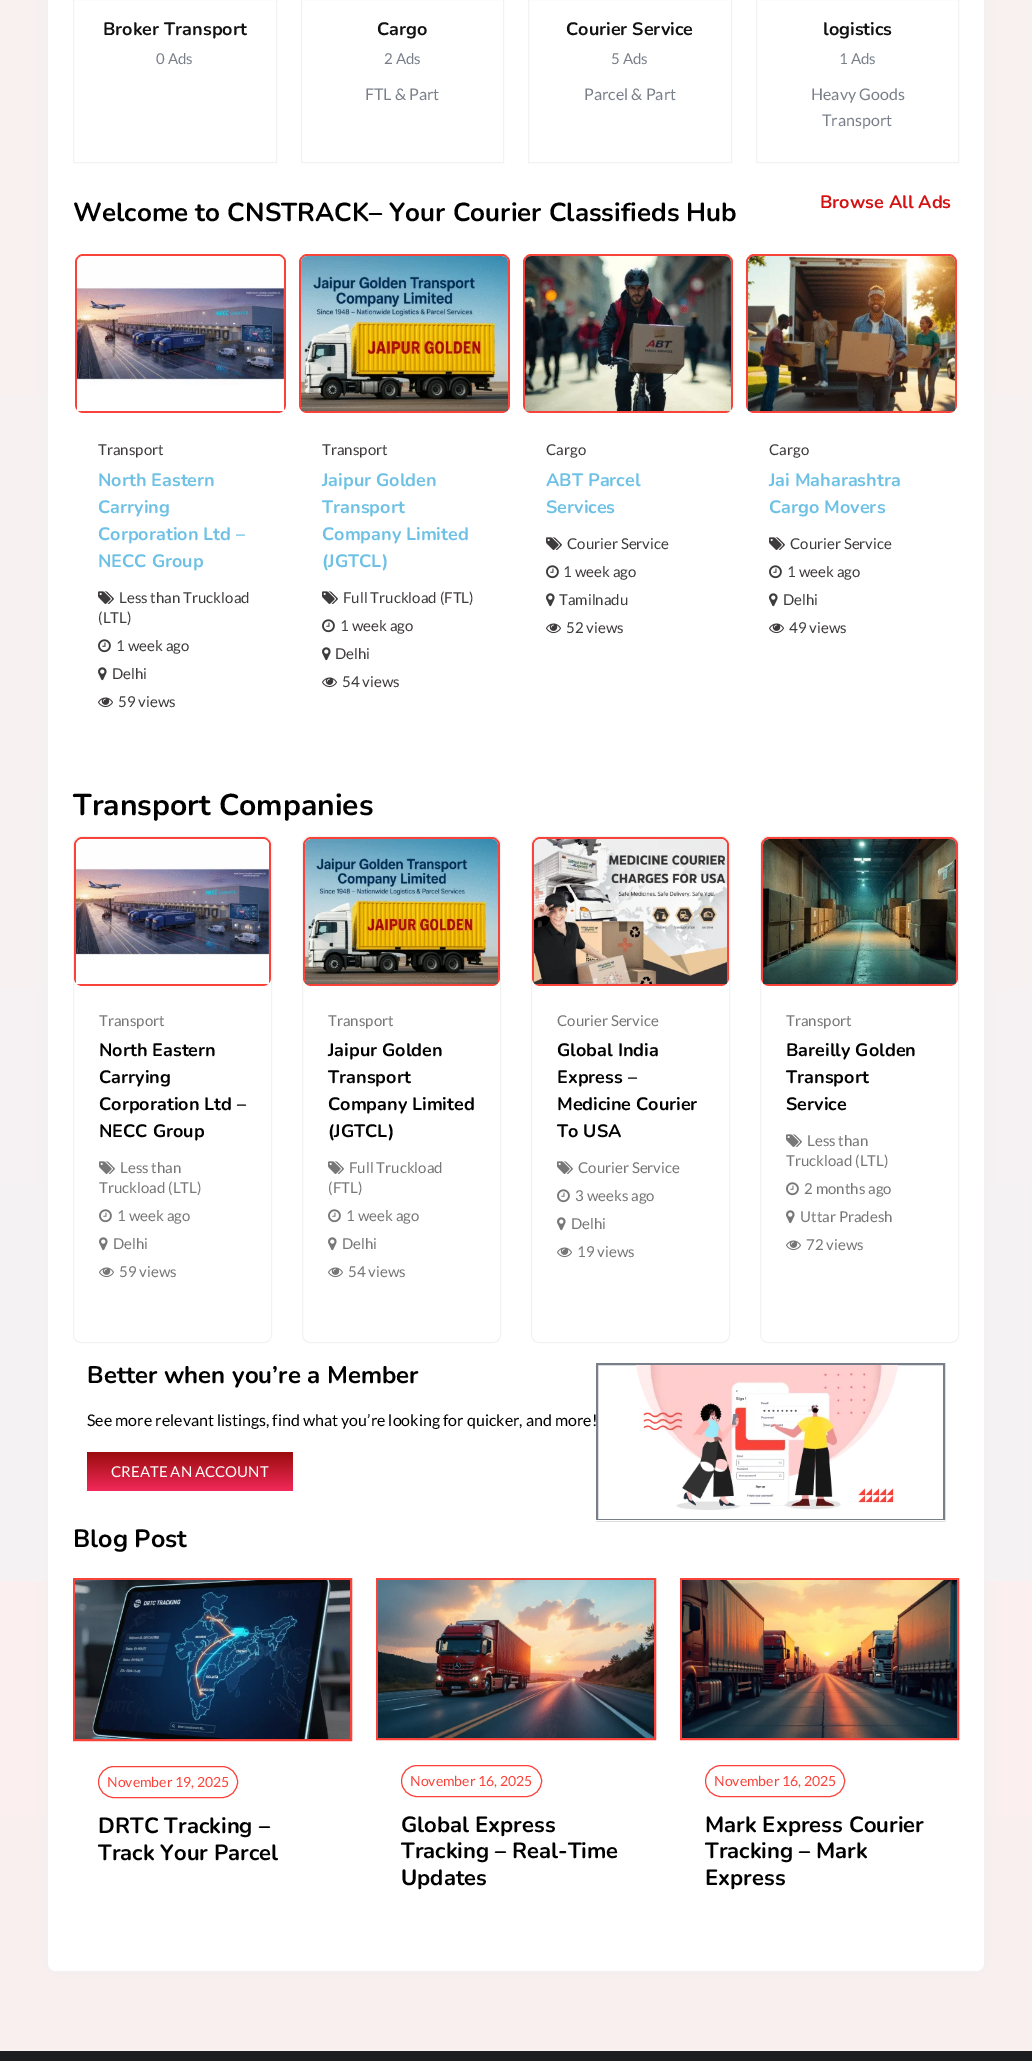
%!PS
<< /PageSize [1032 2061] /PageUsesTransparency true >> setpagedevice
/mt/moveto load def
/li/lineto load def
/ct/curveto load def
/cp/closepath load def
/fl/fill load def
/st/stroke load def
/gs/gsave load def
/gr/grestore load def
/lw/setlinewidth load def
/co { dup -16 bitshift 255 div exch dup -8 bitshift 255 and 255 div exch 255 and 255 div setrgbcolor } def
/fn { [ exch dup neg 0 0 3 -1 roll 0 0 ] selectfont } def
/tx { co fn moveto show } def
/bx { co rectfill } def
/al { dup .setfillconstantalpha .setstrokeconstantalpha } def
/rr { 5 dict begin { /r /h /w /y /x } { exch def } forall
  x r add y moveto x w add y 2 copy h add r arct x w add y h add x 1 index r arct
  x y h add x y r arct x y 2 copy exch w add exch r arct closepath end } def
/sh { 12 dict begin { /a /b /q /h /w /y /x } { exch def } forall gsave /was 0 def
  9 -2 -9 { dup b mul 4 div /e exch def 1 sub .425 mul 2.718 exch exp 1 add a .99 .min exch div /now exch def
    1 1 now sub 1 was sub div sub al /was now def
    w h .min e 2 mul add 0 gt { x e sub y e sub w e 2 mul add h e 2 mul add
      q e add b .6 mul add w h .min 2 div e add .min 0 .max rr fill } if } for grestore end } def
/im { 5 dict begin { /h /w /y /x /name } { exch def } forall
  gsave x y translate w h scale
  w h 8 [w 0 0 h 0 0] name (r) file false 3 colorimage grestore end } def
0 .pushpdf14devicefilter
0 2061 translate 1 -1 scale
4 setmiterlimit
0 0 1032 2061 16#FFFFFF bx
gs 0 0 mt 1032 0 li 1032 1581 li 0 1581 li cp clip newpath
<< /ShadingType 2 /ColorSpace /DeviceRGB /Coords [516 -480 516 1581] /Extend [true true] /Function << /FunctionType 2 /Domain [0 1] /C0 [.988 .937 .937] /C1 [.961 .953 .957] /N 1 >> >> shfill gr
gs 0 1581 mt 1032 1581 li 1032 2051 li 0 2051 li cp clip newpath
<< /ShadingType 2 /ColorSpace /DeviceRGB /Coords [516 1581 516 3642] /Extend [true true] /Function << /FunctionType 2 /Domain [0 1] /C0 [.988 .937 .937] /C1 [.961 .953 .957] /N 1 >> >> shfill gr
16#F0F0F0 co
48 -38 936 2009 8 10 1 sh
16#FFFFFF co
48 -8 936 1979 8 rr fl
16#F2F2F2 co
73.5 -.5 203 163 rectstroke
301.5 -.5 202 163 rectstroke
528.5 -.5 203 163 rectstroke
756.5 -.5 202 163 rectstroke
16#F9423A co
83 254 mt 79 254 75 258 75 262 ct 75 405 li 75 407 76 409 77 410 ct 77 262 li 77 259 80 256 83 256 ct 278 256 li 281 256 284 259 284 262 ct 284 410 li 285 409 286 407 286 405 ct 286 262 li 286 258 282 254 278 254 ct cp 278 413 mt 280 413 282 412 283 411 ct 78 411 li 79 412 81 413 83 413 ct cp eofill
(media/1.raw) 77 256 207 129 im
(media/2.raw) 98 591 16 13 im
(media/3.raw) 98 639 13 14 im
(media/4.raw) 98 667 9 14 im
(media/5.raw) 98 697 15 11 im
307 254 mt 303 254 299 258 299 262 ct 299 405 li 299 407 300 409 301 410 ct 301 262 li 301 259 304 256 307 256 ct 502 256 li 505 256 508 259 508 262 ct 508 410 li 509 409 510 407 510 405 ct 510 262 li 510 258 506 254 502 254 ct cp 502 413 mt 504 413 506 412 507 411 ct 302 411 li 303 412 305 413 307 413 ct cp eofill
(media/6.raw) 301 256 207 155 im
(media/2.raw) 322 591 16 13 im
(media/3.raw) 322 619 13 14 im
(media/4.raw) 322 647 9 14 im
(media/5.raw) 322 677 15 11 im
531 254 mt 527 254 523 258 523 262 ct 523 405 li 523 407 524 409 525 410 ct 525 262 li 525 259 528 256 531 256 ct 725 256 li 728 256 731 259 731 262 ct 731 410 li 732 409 733 407 733 405 ct 733 262 li 733 258 729 254 725 254 ct cp 725 413 mt 727 413 729 412 730 411 ct 526 411 li 527 412 529 413 531 413 ct cp eofill
(media/7.raw) 525 256 206 155 im
(media/2.raw) 546 537 16 13 im
(media/3.raw) 546 565 13 14 im
(media/4.raw) 546 593 9 14 im
(media/5.raw) 546 623 15 11 im
754 254 mt 750 254 746 258 746 262 ct 746 405 li 746 407 747 409 748 410 ct 748 262 li 748 259 751 256 754 256 ct 949 256 li 952 256 955 259 955 262 ct 955 410 li 956 409 957 407 957 405 ct 957 262 li 957 258 953 254 949 254 ct cp 949 413 mt 951 413 953 412 954 411 ct 749 411 li 750 412 752 413 754 413 ct cp eofill
(media/8.raw) 748 256 207 155 im
(media/2.raw) 769 537 16 13 im
(media/3.raw) 769 565 13 14 im
(media/4.raw) 769 593 9 14 im
(media/5.raw) 769 623 15 11 im
16#F2F2F2 co
73.5 836.5 198 506 7.5 rr st
16#F9423A co
82 837 mt 78 837 74 841 74 845 ct 74 978 li 74 980 75 982 76 983 ct 76 845 li 76 842 79 839 82 839 ct 263 839 li 266 839 269 842 269 845 ct 269 983 li 270 982 271 980 271 978 ct 271 845 li 271 841 267 837 263 837 ct cp 263 986 mt 265 986 267 985 268 984 ct 77 984 li 78 985 80 986 82 986 ct cp eofill
(media/9.raw) 76 839 193 121 im
(media/10.raw) 99 1161 16 13 im
(media/11.raw) 99 1209 13 14 im
(media/12.raw) 99 1237 9 14 im
(media/13.raw) 99 1267 15 11 im
16#F2F2F2 co
302.5 836.5 198 506 7.5 rr st
16#F9423A co
311 837 mt 307 837 303 841 303 845 ct 303 978 li 303 980 304 982 305 983 ct 305 845 li 305 842 308 839 311 839 ct 492 839 li 495 839 498 842 498 845 ct 498 983 li 499 982 500 980 500 978 ct 500 845 li 500 841 496 837 492 837 ct cp 492 986 mt 494 986 496 985 497 984 ct 306 984 li 307 985 309 986 311 986 ct cp eofill
(media/14.raw) 305 839 193 145 im
(media/10.raw) 328 1161 16 13 im
(media/11.raw) 328 1209 13 14 im
(media/12.raw) 328 1237 9 14 im
(media/13.raw) 328 1267 15 11 im
16#F2F2F2 co
531.5 836.5 198 506 7.5 rr st
16#F9423A co
540 837 mt 536 837 532 841 532 845 ct 532 978 li 532 980 533 982 534 983 ct 534 845 li 534 842 537 839 540 839 ct 721 839 li 724 839 727 842 727 845 ct 727 983 li 728 982 729 980 729 978 ct 729 845 li 729 841 725 837 721 837 ct cp 721 986 mt 723 986 725 985 726 984 ct 535 984 li 536 985 538 986 540 986 ct cp eofill
(media/15.raw) 534 839 193 145 im
(media/10.raw) 557 1161 16 13 im
(media/11.raw) 557 1189 13 14 im
(media/12.raw) 557 1217 9 14 im
(media/13.raw) 557 1247 15 11 im
16#F2F2F2 co
760.5 836.5 198 506 7.5 rr st
16#F9423A co
769 837 mt 765 837 761 841 761 845 ct 761 978 li 761 980 762 982 763 983 ct 763 845 li 763 842 766 839 769 839 ct 950 839 li 953 839 956 842 956 845 ct 956 983 li 957 982 958 980 958 978 ct 958 845 li 958 841 954 837 950 837 ct cp 950 986 mt 952 986 954 985 955 984 ct 764 984 li 765 985 767 986 769 986 ct cp eofill
(media/16.raw) 763 839 193 145 im
(media/10.raw) 786 1134 16 13 im
(media/11.raw) 786 1182 13 14 im
(media/12.raw) 786 1210 9 14 im
(media/13.raw) 786 1240 15 11 im
gs 87 1452 206 39 3 rr clip newpath
<< /ShadingType 2 /ColorSpace /DeviceRGB /Coords [190 1452 190 1491] /Extend [true true] /Function << /FunctionType 2 /Domain [0 1] /C0 [.604 .047 .047] /C1 [.949 .161 .357] /N 1 >> >> shfill gr
16#797F89 co
2 lw
597 1364 347 156 rectstroke
(media/17.raw) 636 1365 262 145 im
596 1520 349 1 16#FFFFFF bx
16#F9423A co
74 1579 277 161 rectstroke
(media/18.raw) 75 1580 275 159 im
1 lw
98.5 1766.5 139 31 15.5 rr st
2 lw
377 1579 278 160 rectstroke
(media/19.raw) 378 1580 276 158 im
1 lw
401.5 1765.5 140 31 15.5 rr st
2 lw
681 1579 277 160 rectstroke
(media/20.raw) 682 1580 275 158 im
1 lw
705.5 1765.5 139 31 15.5 rr st
0 2051 1032 10 16#1C1D20 bx
(Broker Transport) 103 35 /Nunito-Bold 18 16#111111 tx
(0 Ads) 156 64 /Lato-Regular 15 16#797F89 tx
(Cargo) 377 35 /Nunito-Bold 18 16#111111 tx
(2 Ads) 384 64 /Lato-Regular 15 16#797F89 tx
(FTL & Part) 365 100 /Lato-Regular 16 16#797F89 tx
(Courier Service) 566 35 /Nunito-Bold 18 16#111111 tx
(5 Ads) 611 64 /Lato-Regular 15 16#797F89 tx
(Parcel & Part) 584 100 /Lato-Regular 16 16#797F89 tx
(logistics) 823 35 /Nunito-Bold 18 16#111111 tx
(1 Ads) 839 64 /Lato-Regular 15 16#797F89 tx
(Heavy Goods) 811 100 /Lato-Regular 16 16#797F89 tx
(Transport) 822 126 /Lato-Regular 16 16#797F89 tx
(Welcome to CNSTRACK– Your Courier Classifieds Hub) 73 221 /Nunito-Bold 26 16#000000 tx
(Browse All Ads) 820 208 /Nunito-Bold 18 16#D31313 tx
(Transport) 98 455 /Lato-Regular 15 16#3D3B3B tx
(North Eastern) 98 486 /Nunito-Bold 18 16#6EC1E4 tx
(Carrying) 98 513 /Nunito-Bold 18 16#6EC1E4 tx
(Corporation Ltd –) 98 540 /Nunito-Bold 18 16#6EC1E4 tx
(NECC Group) 98 567 /Nunito-Bold 18 16#6EC1E4 tx
(Less than Truckload) 119 603 /Lato-Regular 15 16#3D3B3B tx
(\(LTL\)) 98 623 /Lato-Regular 15 16#3D3B3B tx
(1 week ago) 116 651 /Lato-Regular 15 16#3D3B3B tx
(Delhi) 112 679 /Lato-Regular 15 16#3D3B3B tx
(59 views) 118 707 /Lato-Regular 15 16#3D3B3B tx
(Transport) 322 455 /Lato-Regular 15 16#3D3B3B tx
(Jaipur Golden) 322 486 /Nunito-Bold 18 16#6EC1E4 tx
(Transport) 322 513 /Nunito-Bold 18 16#6EC1E4 tx
(Company Limited) 322 540 /Nunito-Bold 18 16#6EC1E4 tx
(\(JGTCL\)) 322 567 /Nunito-Bold 18 16#6EC1E4 tx
(Full Truckload \(FTL\)) 343 603 /Lato-Regular 15 16#3D3B3B tx
(1 week ago) 340 631 /Lato-Regular 15 16#3D3B3B tx
(Delhi) 335 659 /Lato-Regular 15 16#3D3B3B tx
(54 views) 342 687 /Lato-Regular 15 16#3D3B3B tx
(Cargo) 546 455 /Lato-Regular 15 16#3D3B3B tx
(ABT Parcel) 546 486 /Nunito-Bold 18 16#6EC1E4 tx
(Services) 546 513 /Nunito-Bold 18 16#6EC1E4 tx
(Courier Service) 567 549 /Lato-Regular 15 16#3D3B3B tx
(1 week ago) 563 577 /Lato-Regular 15 16#3D3B3B tx
(Tamilnadu) 559 605 /Lato-Regular 15 16#3D3B3B tx
(52 views) 566 633 /Lato-Regular 15 16#3D3B3B tx
(Cargo) 769 455 /Lato-Regular 15 16#3D3B3B tx
(Jai Maharashtra) 769 486 /Nunito-Bold 18 16#6EC1E4 tx
(Cargo Movers) 769 513 /Nunito-Bold 18 16#6EC1E4 tx
(Courier Service) 790 549 /Lato-Regular 15 16#3D3B3B tx
(1 week ago) 787 577 /Lato-Regular 15 16#3D3B3B tx
(Delhi) 783 605 /Lato-Regular 15 16#3D3B3B tx
(49 views) 789 633 /Lato-Regular 15 16#3D3B3B tx
(Transport Companies) 73 815 /Nunito-Bold 30 16#000000 tx
(Transport) 99 1026 /Lato-Regular 15 16#777777 tx
(North Eastern) 99 1056 /Nunito-Bold 18 16#000000 tx
(Carrying) 99 1083 /Nunito-Bold 18 16#000000 tx
(Corporation Ltd –) 99 1110 /Nunito-Bold 18 16#000000 tx
(NECC Group) 99 1137 /Nunito-Bold 18 16#000000 tx
(Less than) 120 1173 /Lato-Regular 15 16#777777 tx
(Truckload \(LTL\)) 99 1193 /Lato-Regular 15 16#777777 tx
(1 week ago) 117 1221 /Lato-Regular 15 16#777777 tx
(Delhi) 113 1249 /Lato-Regular 15 16#777777 tx
(59 views) 119 1277 /Lato-Regular 15 16#777777 tx
(Transport) 328 1026 /Lato-Regular 15 16#777777 tx
(Jaipur Golden) 328 1056 /Nunito-Bold 18 16#000000 tx
(Transport) 328 1083 /Nunito-Bold 18 16#000000 tx
(Company Limited) 328 1110 /Nunito-Bold 18 16#000000 tx
(\(JGTCL\)) 328 1137 /Nunito-Bold 18 16#000000 tx
(Full Truckload) 349 1173 /Lato-Regular 15 16#777777 tx
(\(FTL\)) 328 1193 /Lato-Regular 15 16#777777 tx
(1 week ago) 346 1221 /Lato-Regular 15 16#777777 tx
(Delhi) 342 1249 /Lato-Regular 15 16#777777 tx
(54 views) 348 1277 /Lato-Regular 15 16#777777 tx
(Courier Service) 557 1026 /Lato-Regular 15 16#777777 tx
(Global India) 557 1056 /Nunito-Bold 18 16#000000 tx
(Express –) 557 1083 /Nunito-Bold 18 16#000000 tx
(Medicine Courier) 557 1110 /Nunito-Bold 18 16#000000 tx
(To USA) 557 1137 /Nunito-Bold 18 16#000000 tx
(Courier Service) 578 1173 /Lato-Regular 15 16#777777 tx
(3 weeks ago) 575 1201 /Lato-Regular 15 16#777777 tx
(Delhi) 571 1229 /Lato-Regular 15 16#777777 tx
(19 views) 577 1257 /Lato-Regular 15 16#777777 tx
(Transport) 786 1026 /Lato-Regular 15 16#777777 tx
(Bareilly Golden) 786 1056 /Nunito-Bold 18 16#000000 tx
(Transport) 786 1083 /Nunito-Bold 18 16#000000 tx
(Service) 786 1110 /Nunito-Bold 18 16#000000 tx
(Less than) 807 1146 /Lato-Regular 15 16#777777 tx
(Truckload \(LTL\)) 786 1166 /Lato-Regular 15 16#777777 tx
(2 months ago) 804 1194 /Lato-Regular 15 16#777777 tx
(Uttar Pradesh) 800 1222 /Lato-Regular 15 16#777777 tx
(72 views) 806 1250 /Lato-Regular 15 16#777777 tx
(Better when you’re a Member) 87 1383 /Nunito-Bold 24 16#000000 tx
(See more relevant listings, find what you’re looking for quicker, and more!) 87 1426 /Lato-Regular 16 16#000000 tx
(CREATE AN ACCOUNT) 111 1477 /Lato-Regular 15 16#FBFEFA tx
(Blog Post) 73 1547 /Nunito-Bold 25 16#000000 tx
(November 19, 2025) 107 1787 /Lato-Regular 14 16#F9423A tx
(DRTC Tracking –) 98 1833 /Nunito-Bold 22 16#000000 tx
(Track Your Parcel) 98 1860 /Nunito-Bold 22 16#000000 tx
(November 16, 2025) 410 1786 /Lato-Regular 14 16#F9423A tx
(Global Express) 401 1832 /Nunito-Bold 22 16#000000 tx
(Tracking – Real-Time) 401 1858 /Nunito-Bold 22 16#000000 tx
(Updates) 401 1885 /Nunito-Bold 22 16#000000 tx
(November 16, 2025) 714 1786 /Lato-Regular 14 16#F9423A tx
(Mark Express Courier) 705 1832 /Nunito-Bold 22 16#000000 tx
(Tracking – Mark) 705 1858 /Nunito-Bold 22 16#000000 tx
(Express) 705 1885 /Nunito-Bold 22 16#000000 tx
.poppdf14devicefilter showpage
